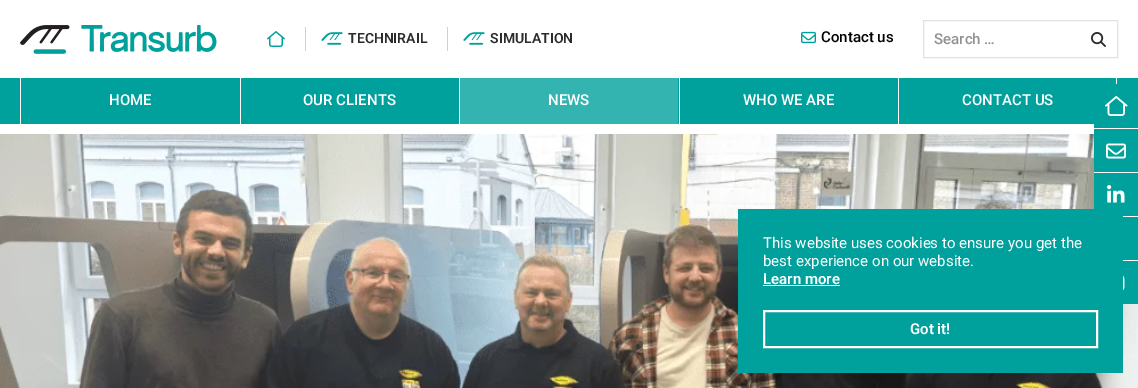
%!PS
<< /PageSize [1138 388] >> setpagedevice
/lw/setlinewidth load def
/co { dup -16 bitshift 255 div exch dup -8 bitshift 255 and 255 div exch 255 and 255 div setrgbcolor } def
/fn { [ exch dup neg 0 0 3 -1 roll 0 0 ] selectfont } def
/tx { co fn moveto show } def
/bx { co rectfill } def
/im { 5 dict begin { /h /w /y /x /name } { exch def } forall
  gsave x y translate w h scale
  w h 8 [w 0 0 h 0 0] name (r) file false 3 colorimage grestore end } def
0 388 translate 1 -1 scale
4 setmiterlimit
0 0 1138 388 16#FFFFFF bx
(media/1.raw) 20 25 197 29 im
(media/2.raw) 267 31 18 16 im
305 27 1 24 16#D1D1D1 bx
(media/3.raw) 321 32 22 13 im
447 27 1 24 16#D1D1D1 bx
(media/3.raw) 463 32 22 13 im
(media/4.raw) 801 31 15 13 im
16#E1E1E1 co
923.5 20.5 194 37 rectstroke
(media/5.raw) 1091 32 15 15 im
0 78 1138 46 16#00A19C bx
20 78 1 46 16#FFFFFF bx
240 78 1 46 16#FFFFFF bx
460 78 218 46 16#33B4B0 bx
459 78 1 46 16#FFFFFF bx
679 78 1 46 16#FFFFFF bx
1116 78 1 6 16#FFFFFF bx
898 78 1 46 16#FFFFFF bx
1094 124 44 4 16#00A19C bx
(media/6.raw) 1105 96 23 20 im
(media/10.raw) 0 134 1138 254 im
1094 129 44 43 16#00A19C bx
(media/7.raw) 1106 143 20 16 im
1094 173 44 43 16#00A19C bx
1094 172 44 1 16#FFFFFF bx
(media/8.raw) 1107 185 18 18 im
1123 217 15 43 16#00A19C bx
1123 216 15 1 16#FFFFFF bx
1123 261 15 43 16#00A19C bx
1123 260 15 1 16#FFFFFF bx
(media/9.raw) 1123 275 2 16 im
738 209 385 164 16#00A19C bx
763 285 77 1 16#FFFFFF bx
2 lw
764 311 333 36 rectstroke
(TECHNIRAIL) 348 43 /Roboto-SemiBold 14 16#2C2C2C tx
(SIMULATION) 490 43 /Roboto-SemiBold 14 16#2C2C2C tx
(Contact us) 821 42 /Roboto-Medium 15 16#000000 tx
(Search …) 934 44 /Roboto-Medium 15 16#919191 tx
(HOME) 109 105 /Roboto-Medium 15 16#FFFFFF tx
(OUR CLIENTS) 303 105 /Roboto-Medium 15 16#FFFFFF tx
(NEWS) 548 105 /Roboto-Medium 15 16#FFFFFF tx
(WHO WE ARE) 743 105 /Roboto-Medium 15 16#FFFFFF tx
(CONTACT US) 962 105 /Roboto-Medium 15 16#FFFFFF tx
(This website uses cookies to ensure you get the) 763 248 /Roboto-Regular 15 16#FFFFFF tx
(best experience on our website.) 763 266 /Roboto-Regular 15 16#FFFFFF tx
(Learn more) 763 284 /Roboto-SemiBold 15 16#FFFFFF tx
(Got it!) 910 334 /Roboto-SemiBold 15 16#FFFFFF tx
showpage
